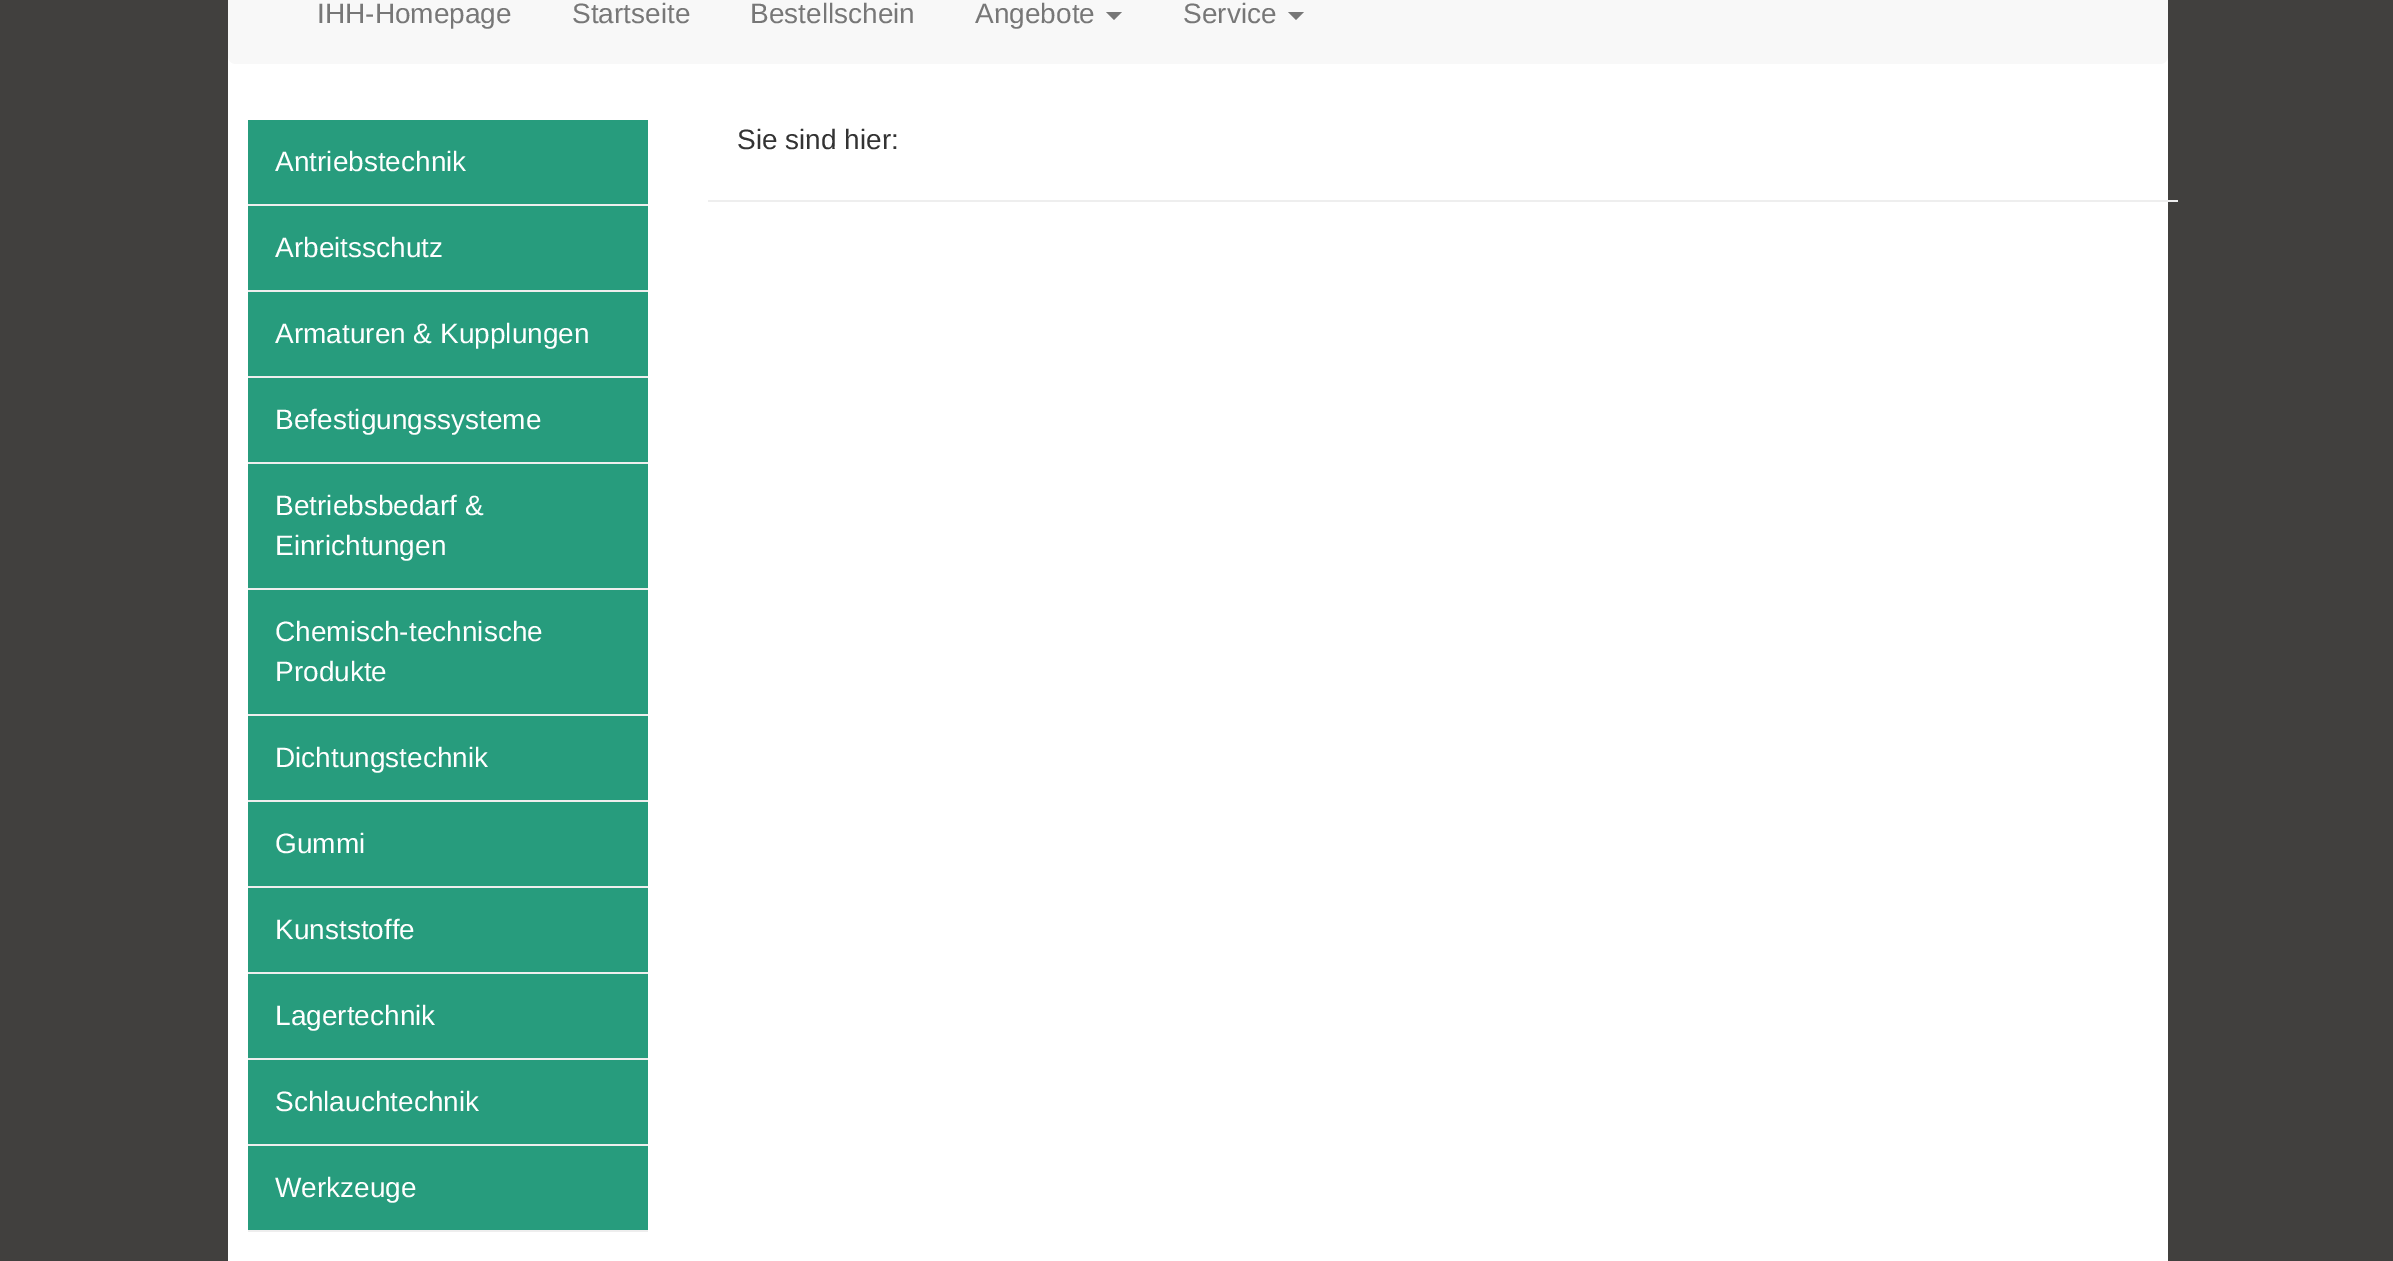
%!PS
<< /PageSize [2393 1261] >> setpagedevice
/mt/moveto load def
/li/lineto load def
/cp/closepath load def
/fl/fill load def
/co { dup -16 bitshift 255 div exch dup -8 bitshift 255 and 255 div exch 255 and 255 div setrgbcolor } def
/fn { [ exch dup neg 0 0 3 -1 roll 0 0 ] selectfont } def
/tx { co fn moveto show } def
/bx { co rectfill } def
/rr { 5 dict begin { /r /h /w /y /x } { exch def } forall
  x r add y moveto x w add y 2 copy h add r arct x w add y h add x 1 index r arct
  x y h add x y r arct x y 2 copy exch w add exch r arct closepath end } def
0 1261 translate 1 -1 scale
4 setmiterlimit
0 0 2393 1261 16#41403E bx
228 56 1940 1205 16#FFFFFF bx
16#F8F8F8 co
228 -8 1940 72 8 rr fl
16#777777 co
1106 12 mt 1122 12 li 1114 20 li cp fl
1288 12 mt 1304 12 li 1296 20 li cp fl
708 200 1470 2 16#EEEEEE bx
248 120 400 84 16#279C7D bx
248 204 400 2 16#EEEEEE bx
248 206 400 84 16#279C7D bx
248 290 400 2 16#EEEEEE bx
248 292 400 84 16#279C7D bx
248 376 400 2 16#EEEEEE bx
248 378 400 84 16#279C7D bx
248 462 400 2 16#EEEEEE bx
248 464 400 124 16#279C7D bx
248 588 400 2 16#EEEEEE bx
248 590 400 124 16#279C7D bx
248 714 400 2 16#EEEEEE bx
248 716 400 84 16#279C7D bx
248 800 400 2 16#EEEEEE bx
248 802 400 84 16#279C7D bx
248 886 400 2 16#EEEEEE bx
248 888 400 84 16#279C7D bx
248 972 400 2 16#EEEEEE bx
248 974 400 84 16#279C7D bx
248 1058 400 2 16#EEEEEE bx
248 1060 400 84 16#279C7D bx
248 1144 400 2 16#EEEEEE bx
248 1146 400 84 16#279C7D bx
248 1230 400 2 16#EEEEEE bx
(IHH-Homepage) 317 23 /LiberationSans-Regular 28 16#777777 tx
(Startseite) 572 23 /LiberationSans-Regular 28 16#777777 tx
(Bestellschein) 750 23 /LiberationSans-Regular 28 16#777777 tx
(Angebote) 975 23 /LiberationSans-Regular 28 16#777777 tx
(Service) 1183 23 /LiberationSans-Regular 28 16#777777 tx
(Sie sind hier:) 737 149 /LiberationSans-Regular 28 16#333333 tx
(Antriebstechnik) 275 171 /LiberationSans-Regular 28 16#FFFFFF tx
(Arbeitsschutz) 275 257 /LiberationSans-Regular 28 16#FFFFFF tx
(Armaturen & Kupplungen) 275 343 /LiberationSans-Regular 28 16#FFFFFF tx
(Befestigungssysteme) 275 429 /LiberationSans-Regular 28 16#FFFFFF tx
(Betriebsbedarf &) 275 515 /LiberationSans-Regular 28 16#FFFFFF tx
(Einrichtungen) 275 555 /LiberationSans-Regular 28 16#FFFFFF tx
(Chemisch-technische) 275 641 /LiberationSans-Regular 28 16#FFFFFF tx
(Produkte) 275 681 /LiberationSans-Regular 28 16#FFFFFF tx
(Dichtungstechnik) 275 767 /LiberationSans-Regular 28 16#FFFFFF tx
(Gummi) 275 853 /LiberationSans-Regular 28 16#FFFFFF tx
(Kunststoffe) 275 939 /LiberationSans-Regular 28 16#FFFFFF tx
(Lagertechnik) 275 1025 /LiberationSans-Regular 28 16#FFFFFF tx
(Schlauchtechnik) 275 1111 /LiberationSans-Regular 28 16#FFFFFF tx
(Werkzeuge) 275 1197 /LiberationSans-Regular 28 16#FFFFFF tx
showpage
